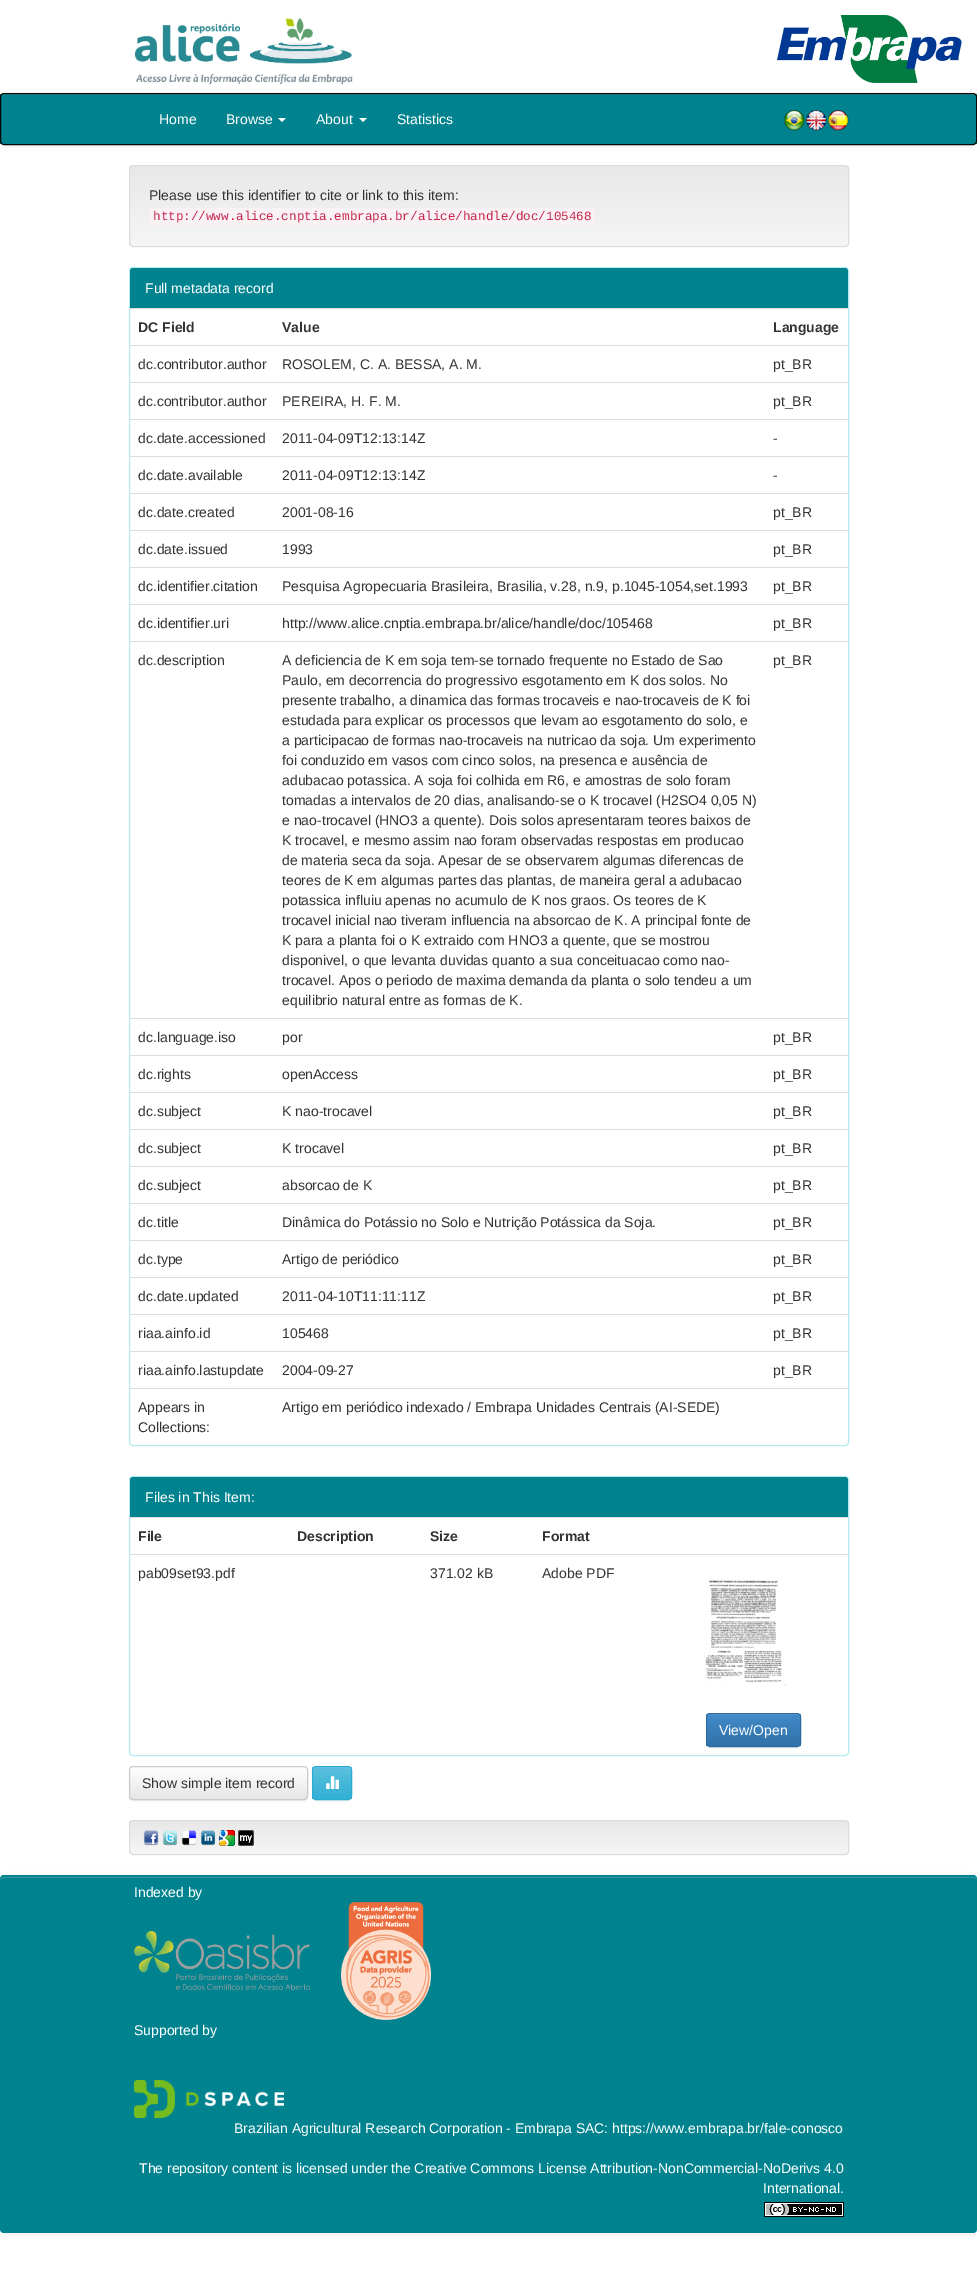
%!PS
<< /PageSize [977 2284] /PageUsesTransparency true >> setpagedevice
/mt/moveto load def
/li/lineto load def
/ct/curveto load def
/cp/closepath load def
/fl/fill load def
/st/stroke load def
/gs/gsave load def
/gr/grestore load def
/co { dup -16 bitshift 255 div exch dup -8 bitshift 255 and 255 div exch 255 and 255 div setrgbcolor } def
/fn { [ exch dup neg 0 0 3 -1 roll 0 0 ] selectfont } def
/tx { co fn moveto show } def
/bx { co rectfill } def
/al { dup .setfillconstantalpha .setstrokeconstantalpha } def
/rr { 5 dict begin { /r /h /w /y /x } { exch def } forall
  x r add y moveto x w add y 2 copy h add r arct x w add y h add x 1 index r arct
  x y h add x y r arct x y 2 copy exch w add exch r arct closepath end } def
/sh { 12 dict begin { /a /b /q /h /w /y /x } { exch def } forall gsave /was 0 def
  9 -2 -9 { dup b mul 4 div /e exch def 1 sub .425 mul 2.718 exch exp 1 add a .99 .min exch div /now exch def
    1 1 now sub 1 was sub div sub al /was now def
    w h .min e 2 mul add 0 gt { x e sub y e sub w e 2 mul add h e 2 mul add
      q e add b .6 mul add w h .min 2 div e add .min 0 .max rr fill } if } for grestore end } def
/im { 5 dict begin { /h /w /y /x /name } { exch def } forall
  gsave x y translate w h scale
  w h 8 [w 0 0 h 0 0] name (r) file false 3 colorimage grestore end } def
0 .pushpdf14devicefilter
0 2284 translate 1 -1 scale
4 setmiterlimit
0 0 977 2284 16#FFFFFF bx
(media/1.raw) 134 18 219 67 im
(media/2.raw) 777 15 185 68 im
16#000000 co
0 94 977 52 4 2.5 .07 sh
gs
0 93 977 52 4 rr clip newpath
0 94 977 50 16#00838F bx
gr
16#2696A0 co
4 95 mt 973 95 li 975 95 976 96 976 98 ct 976 96 975 94 973 94 ct 4 94 li 2 94 1 96 1 98 ct 1 96 2 95 4 95 ct cp fl
16#080808 co
.5 93.5 976 51 3.5 rr st
16#FFFFFF co
278 118 mt 286 118 li 282 122 li cp fl
359 118 mt 367 118 li 363 122 li cp fl
(media/3.raw) 783 109 22 22 im
(media/4.raw) 805 109 22 22 im
(media/5.raw) 827 109 22 22 im
gs
129 165 720 82 4 rr clip newpath
gs 129 166 mt 849 166 li 849 246 li 129 246 li cp clip newpath
<< /ShadingType 2 /ColorSpace /DeviceRGB /Coords [489 166 489 246] /Extend [true true] /Function << /FunctionType 2 /Domain [0 1] /C0 [.91 .91 .91] /C1 [.961 .961 .961] /N 1 >> >> shfill gr
gr
16#DCDCDC co
129.5 165.5 719 81 3.5 rr st
16#F9F2F4 co
149 208 446 18 4 rr fl
16#B2EBF2 co
129.5 267.5 719 1178 3.5 rr st
16#00838F co
133 268 mt 845 268 li 846.5 268 848 269.5 848 271 ct 848 308 li 130 308 li 130 271 li 130 269.5 131.5 268 133 268 ct cp fl
129 308 719 1 16#DDDDDD bx
129 345 719 1 16#DDDDDD bx
129 382 719 1 16#DDDDDD bx
129 419 719 1 16#DDDDDD bx
129 456 719 1 16#DDDDDD bx
129 493 719 1 16#DDDDDD bx
129 530 719 1 16#DDDDDD bx
129 567 719 1 16#DDDDDD bx
129 604 719 1 16#DDDDDD bx
129 641 719 1 16#DDDDDD bx
129 1018 719 1 16#DDDDDD bx
129 1055 719 1 16#DDDDDD bx
129 1092 719 1 16#DDDDDD bx
129 1129 719 1 16#DDDDDD bx
129 1166 719 1 16#DDDDDD bx
129 1203 719 1 16#DDDDDD bx
129 1240 719 1 16#DDDDDD bx
129 1277 719 1 16#DDDDDD bx
129 1314 719 1 16#DDDDDD bx
129 1351 719 1 16#DDDDDD bx
129 1388 719 1 16#DDDDDD bx
16#B2EBF2 co
129.5 1476.5 719 279 3.5 rr st
16#00838F co
133 1477 mt 845 1477 li 846.5 1477 848 1478.5 848 1480 ct 848 1517 li 130 1517 li 130 1480 li 130 1478.5 131.5 1477 133 1477 ct cp fl
129 1517 719 1 16#DDDDDD bx
129 1554 719 1 16#DDDDDD bx
(media/6.raw) 704 1579 82 107 im
16#000000 co
706 1714 95 34 4 .5 .07 sh
gs
706 1713 95 34 4 rr clip newpath
gs 706 1714 mt 801 1714 li 801 1746 li 706 1746 li cp clip newpath
<< /ShadingType 2 /ColorSpace /DeviceRGB /Coords [754 1714 754 1746] /Extend [true true] /Function << /FunctionType 2 /Domain [0 1] /C0 [.259 .545 .792] /C1 [.188 .443 .663] /N 1 >> >> shfill gr
gr
16#5E9CD1 co
710 1715 mt 797 1715 li 799 1715 800 1716 800 1718 ct 800 1710 786 1714 782 1714 ct 724 1714 li 721 1714 707 1710 707 1718 ct 707 1716 708 1715 710 1715 ct cp fl
16#2D6CA2 co
706.5 1713.5 94 33 3.5 rr st
16#000000 co
129 1767 179 34 4 .5 .07 sh
gs
129 1766 179 34 4 rr clip newpath
gs 129 1767 mt 308 1767 li 308 1799 li 129 1799 li cp clip newpath
<< /ShadingType 2 /ColorSpace /DeviceRGB /Coords [219 1767 219 1799] /Extend [true true] /Function << /FunctionType 2 /Domain [0 1] /C0 [1 1 1] /C1 [.902 .902 .902] /N 1 >> >> shfill gr
gr
16#CCCCCC co
129.5 1766.5 178 33 3.5 rr st
16#000000 co
312 1767 40 34 4 .5 .07 sh
gs
312 1766 40 34 4 rr clip newpath
gs 312 1767 mt 352 1767 li 352 1799 li 312 1799 li cp clip newpath
<< /ShadingType 2 /ColorSpace /DeviceRGB /Coords [332 1767 332 1799] /Extend [true true] /Function << /FunctionType 2 /Domain [0 1] /C0 [.357 .753 .871] /C1 [.192 .69 .835] /N 1 >> >> shfill gr
gr
16#73C9E3 co
316 1768 mt 343 1768 li 348.5 1768 350.5 1768.5 351 1770.5 ct 351 1765.5 346.5 1767 342.5 1767 ct 321.5 1767 li 318 1767 313 1766 313 1770.5 ct 313.5 1769 314.5 1768 316 1768 ct cp fl
16#2AABD2 co
312.5 1766.5 39 33 3.5 rr st
(media/7.raw) 326 1776 13 13 im
gs
129 1820 720 35 4 rr clip newpath
gs 129 1821 mt 849 1821 li 849 1854 li 129 1854 li cp clip newpath
<< /ShadingType 2 /ColorSpace /DeviceRGB /Coords [489 1821 489 1854] /Extend [true true] /Function << /FunctionType 2 /Domain [0 1] /C0 [.91 .91 .91] /C1 [.961 .961 .961] /N 1 >> >> shfill gr
gr
16#DCDCDC co
129.5 1820.5 719 34 3.5 rr st
(media/8.raw) 143 1830 16 16 im
(media/9.raw) 162 1830 16 16 im
(media/10.raw) 181 1830 16 16 im
(media/11.raw) 200 1830 16 16 im
(media/12.raw) 219 1830 16 16 im
(media/13.raw) 238 1830 16 16 im
16#000000 co
0 1876 977 358 4 2.5 .07 sh
16#00838F co
0 1875 977 358 4 rr fl
0.15 al
16#FFFFFF co
4 1878 mt 973 1878 li 975 1878 977 1879 977 1880 ct 977 1878 975 1877 973 1877 ct 4 1877 li 3 1877 1 1877 0 1879 ct 0 1880 li 0 1879 2 1878 4 1878 ct cp fl
1 al
2 1875 973 1 16#00838F bx
(media/14.raw) 134 1931 176 59 im
(media/15.raw) 341 1902 90 118 im
(media/16.raw) 134 2080 150 38 im
(media/17.raw) 764 2202 80 15 im
(Home) 159 124 /LiberationSans-Regular 14 16#FFFFFF tx
(Browse) 226 124 /LiberationSans-Regular 14 16#FFFFFF tx
(About) 316 124 /LiberationSans-Regular 14 16#FFFFFF tx
(Statistics) 397 124 /LiberationSans-Regular 14 16#FFFFFF tx
(Please use this identifier to cite or link to this item:) 149 200 /LiberationSans-Regular 14 16#333333 tx
(http://www.alice.cnptia.embrapa.br/alice/handle/doc/105468) 153 220 /LiberationMono-Regular 12.6 16#C7254E tx
(Full metadata record) 145 293 /LiberationSans-Regular 14 16#FFFFFF tx
(DC Field) 138 332 /LiberationSans-Bold 14 16#333333 tx
(Value) 282 332 /LiberationSans-Bold 14 16#333333 tx
(Language) 773 332 /LiberationSans-Bold 14 16#333333 tx
(dc.contributor.author) 138 369 /LiberationSans-Regular 14 16#333333 tx
(ROSOLEM, C. A. BESSA, A. M.) 282 369 /LiberationSans-Regular 14 16#333333 tx
(pt_BR) 773 369 /LiberationSans-Regular 14 16#333333 tx
(dc.contributor.author) 138 406 /LiberationSans-Regular 14 16#333333 tx
(PEREIRA, H. F. M.) 282 406 /LiberationSans-Regular 14 16#333333 tx
(pt_BR) 773 406 /LiberationSans-Regular 14 16#333333 tx
(dc.date.accessioned) 138 443 /LiberationSans-Regular 14 16#333333 tx
(2011-04-09T12:13:14Z) 282 443 /LiberationSans-Regular 14 16#333333 tx
(-) 773 443 /LiberationSans-Regular 14 16#333333 tx
(dc.date.available) 138 480 /LiberationSans-Regular 14 16#333333 tx
(2011-04-09T12:13:14Z) 282 480 /LiberationSans-Regular 14 16#333333 tx
(-) 773 480 /LiberationSans-Regular 14 16#333333 tx
(dc.date.created) 138 517 /LiberationSans-Regular 14 16#333333 tx
(2001-08-16) 282 517 /LiberationSans-Regular 14 16#333333 tx
(pt_BR) 773 517 /LiberationSans-Regular 14 16#333333 tx
(dc.date.issued) 138 554 /LiberationSans-Regular 14 16#333333 tx
(1993) 282 554 /LiberationSans-Regular 14 16#333333 tx
(pt_BR) 773 554 /LiberationSans-Regular 14 16#333333 tx
(dc.identifier.citation) 138 591 /LiberationSans-Regular 14 16#333333 tx
(Pesquisa Agropecuaria Brasileira, Brasilia, v.28, n.9, p.1045-1054,set.1993) 282 591 /LiberationSans-Regular 14 16#333333 tx
(pt_BR) 773 591 /LiberationSans-Regular 14 16#333333 tx
(dc.identifier.uri) 138 628 /LiberationSans-Regular 14 16#333333 tx
(http://www.alice.cnptia.embrapa.br/alice/handle/doc/105468) 282 628 /LiberationSans-Regular 14 16#333333 tx
(pt_BR) 773 628 /LiberationSans-Regular 14 16#333333 tx
(dc.description) 138 665 /LiberationSans-Regular 14 16#333333 tx
(A deficiencia de K em soja tem-se tornado frequente no Estado de Sao) 282 665 /LiberationSans-Regular 14 16#333333 tx
(Paulo, em decorrencia do progressivo esgotamento em K dos solos. No) 282 685 /LiberationSans-Regular 14 16#333333 tx
(presente trabalho, a dinamica das formas trocaveis e nao-trocaveis de K foi) 282 705 /LiberationSans-Regular 14 16#333333 tx
(estudada para explicar os processos que levam ao esgotamento do solo, e) 282 725 /LiberationSans-Regular 14 16#333333 tx
(a participacao de formas nao-trocaveis na nutricao da soja. Um experimento) 282 745 /LiberationSans-Regular 14 16#333333 tx
(foi conduzido em vasos com cinco solos, na presenca e ausência de) 282 765 /LiberationSans-Regular 14 16#333333 tx
(adubacao potassica. A soja foi colhida em R6, e amostras de solo foram) 282 785 /LiberationSans-Regular 14 16#333333 tx
(tomadas a intervalos de 20 dias, analisando-se o K trocavel \(H2SO4 0,05 N\)) 282 805 /LiberationSans-Regular 14 16#333333 tx
(e nao-trocavel \(HNO3 a quente\). Dois solos apresentaram teores baixos de) 282 825 /LiberationSans-Regular 14 16#333333 tx
(K trocavel, e mesmo assim nao foram observadas respostas em producao) 282 845 /LiberationSans-Regular 14 16#333333 tx
(de materia seca da soja. Apesar de se observarem algumas diferencas de) 282 865 /LiberationSans-Regular 14 16#333333 tx
(teores de K em algumas partes das plantas, de maneira geral a adubacao) 282 885 /LiberationSans-Regular 14 16#333333 tx
(potassica influiu apenas no acumulo de K nos graos. Os teores de K) 282 905 /LiberationSans-Regular 14 16#333333 tx
(trocavel inicial nao tiveram influencia na absorcao de K. A principal fonte de) 282 925 /LiberationSans-Regular 14 16#333333 tx
(K para a planta foi o K extraido com HNO3 a quente, que se mostrou) 282 945 /LiberationSans-Regular 14 16#333333 tx
(disponivel, o que levanta duvidas quanto a sua conceituacao como nao-) 282 965 /LiberationSans-Regular 14 16#333333 tx
(trocavel. Apos o periodo de maxima demanda da planta o solo tendeu a um) 282 985 /LiberationSans-Regular 14 16#333333 tx
(equilibrio natural entre as formas de K.) 282 1005 /LiberationSans-Regular 14 16#333333 tx
(pt_BR) 773 665 /LiberationSans-Regular 14 16#333333 tx
(dc.language.iso) 138 1042 /LiberationSans-Regular 14 16#333333 tx
(por) 282 1042 /LiberationSans-Regular 14 16#333333 tx
(pt_BR) 773 1042 /LiberationSans-Regular 14 16#333333 tx
(dc.rights) 138 1079 /LiberationSans-Regular 14 16#333333 tx
(openAccess) 282 1079 /LiberationSans-Regular 14 16#333333 tx
(pt_BR) 773 1079 /LiberationSans-Regular 14 16#333333 tx
(dc.subject) 138 1116 /LiberationSans-Regular 14 16#333333 tx
(K nao-trocavel) 282 1116 /LiberationSans-Regular 14 16#333333 tx
(pt_BR) 773 1116 /LiberationSans-Regular 14 16#333333 tx
(dc.subject) 138 1153 /LiberationSans-Regular 14 16#333333 tx
(K trocavel) 282 1153 /LiberationSans-Regular 14 16#333333 tx
(pt_BR) 773 1153 /LiberationSans-Regular 14 16#333333 tx
(dc.subject) 138 1190 /LiberationSans-Regular 14 16#333333 tx
(absorcao de K) 282 1190 /LiberationSans-Regular 14 16#333333 tx
(pt_BR) 773 1190 /LiberationSans-Regular 14 16#333333 tx
(dc.title) 138 1227 /LiberationSans-Regular 14 16#333333 tx
(Dinâmica do Potássio no Solo e Nutrição Potássica da Soja.) 282 1227 /LiberationSans-Regular 14 16#333333 tx
(pt_BR) 773 1227 /LiberationSans-Regular 14 16#333333 tx
(dc.type) 138 1264 /LiberationSans-Regular 14 16#333333 tx
(Artigo de periódico) 282 1264 /LiberationSans-Regular 14 16#333333 tx
(pt_BR) 773 1264 /LiberationSans-Regular 14 16#333333 tx
(dc.date.updated) 138 1301 /LiberationSans-Regular 14 16#333333 tx
(2011-04-10T11:11:11Z) 282 1301 /LiberationSans-Regular 14 16#333333 tx
(pt_BR) 773 1301 /LiberationSans-Regular 14 16#333333 tx
(riaa.ainfo.id) 138 1338 /LiberationSans-Regular 14 16#333333 tx
(105468) 282 1338 /LiberationSans-Regular 14 16#333333 tx
(pt_BR) 773 1338 /LiberationSans-Regular 14 16#333333 tx
(riaa.ainfo.lastupdate) 138 1375 /LiberationSans-Regular 14 16#333333 tx
(2004-09-27) 282 1375 /LiberationSans-Regular 14 16#333333 tx
(pt_BR) 773 1375 /LiberationSans-Regular 14 16#333333 tx
(Appears in) 138 1412 /LiberationSans-Regular 14 16#333333 tx
(Collections:) 138 1432 /LiberationSans-Regular 14 16#333333 tx
(Artigo em periódico indexado / Embrapa Unidades Centrais \(AI-SEDE\)) 282 1412 /LiberationSans-Regular 14 16#333333 tx
(Files in This Item:) 145 1502 /LiberationSans-Regular 14 16#FFFFFF tx
(File) 138 1541 /LiberationSans-Bold 14 16#333333 tx
(Description) 297 1541 /LiberationSans-Bold 14 16#333333 tx
(Size) 430 1541 /LiberationSans-Bold 14 16#333333 tx
(Format) 542 1541 /LiberationSans-Bold 14 16#333333 tx
(pab09set93.pdf) 138 1578 /LiberationSans-Regular 14 16#333333 tx
(371.02 kB) 430 1578 /LiberationSans-Regular 14 16#333333 tx
(Adobe PDF) 542 1578 /LiberationSans-Regular 14 16#333333 tx
(View/Open) 719 1735 /LiberationSans-Regular 14 16#FFFFFF tx
(Show simple item record) 142 1788 /LiberationSans-Regular 14 16#333333 tx
(Indexed by) 134 1897 /LiberationSans-Regular 14 16#FFFFFF tx
(Supported by) 134 2035 /LiberationSans-Regular 14 16#FFFFFF tx
(Brazilian Agricultural Research Corporation - Embrapa SAC: https://www.embrapa.br/fale-conosco) 234 2133 /LiberationSans-Regular 14 16#FFFFFF tx
(The repository content is licensed under the Creative Commons License Attribution-NonCommercial-NoDerivs 4.0) 139 2173 /LiberationSans-Regular 14 16#FFFFFF tx
(International.) 763 2193 /LiberationSans-Regular 14 16#FFFFFF tx
.poppdf14devicefilter showpage
